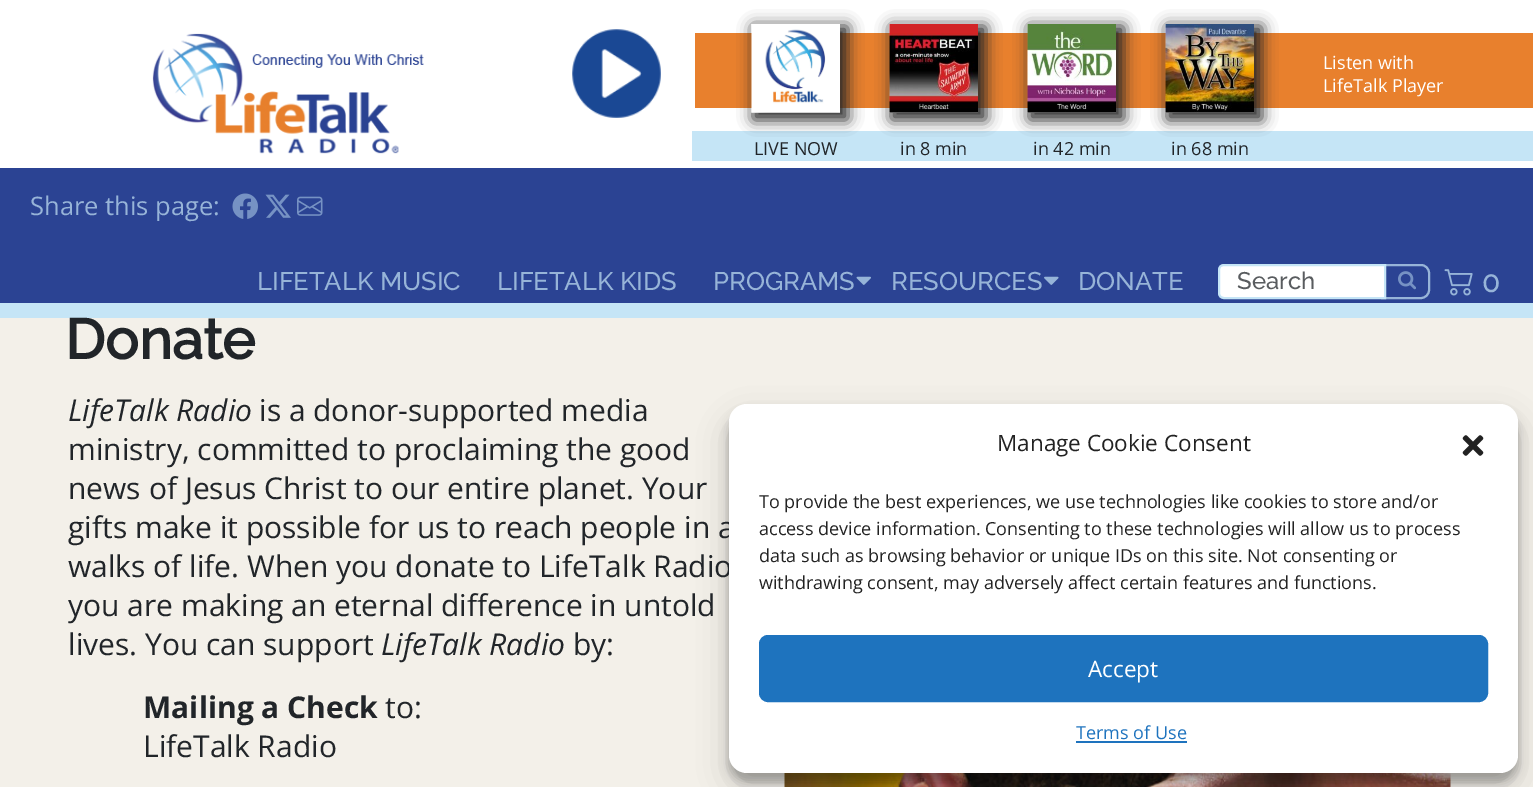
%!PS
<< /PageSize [1533 787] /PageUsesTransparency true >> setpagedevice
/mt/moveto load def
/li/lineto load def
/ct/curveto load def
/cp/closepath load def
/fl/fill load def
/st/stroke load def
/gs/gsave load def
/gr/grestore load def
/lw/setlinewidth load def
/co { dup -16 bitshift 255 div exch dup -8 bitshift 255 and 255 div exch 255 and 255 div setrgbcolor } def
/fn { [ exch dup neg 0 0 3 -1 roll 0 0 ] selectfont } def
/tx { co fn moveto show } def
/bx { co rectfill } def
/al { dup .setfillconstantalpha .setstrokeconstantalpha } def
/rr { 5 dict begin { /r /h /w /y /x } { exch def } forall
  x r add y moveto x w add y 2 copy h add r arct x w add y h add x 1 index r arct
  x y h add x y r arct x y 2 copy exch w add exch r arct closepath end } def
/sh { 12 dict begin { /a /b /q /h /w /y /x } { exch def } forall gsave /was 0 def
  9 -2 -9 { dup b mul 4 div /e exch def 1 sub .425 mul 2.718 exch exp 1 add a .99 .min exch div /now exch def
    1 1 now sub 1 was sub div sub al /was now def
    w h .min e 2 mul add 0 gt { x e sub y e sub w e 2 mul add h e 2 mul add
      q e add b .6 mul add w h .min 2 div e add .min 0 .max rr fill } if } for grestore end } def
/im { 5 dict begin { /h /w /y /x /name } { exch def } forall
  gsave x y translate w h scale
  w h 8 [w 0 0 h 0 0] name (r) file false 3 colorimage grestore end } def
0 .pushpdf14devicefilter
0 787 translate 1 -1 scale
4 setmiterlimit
0 0 1533 787 16#F3F0E9 bx
0 0 1533 168 16#FFFFFF bx
(media/1.raw) 152 33 272 121 im
(media/2.raw) 572 29 89 89 im
695 33 838 75 16#E8802D bx
692 131 841 30 16#C5E5F6 bx
16#292929 co
753 26 95 94 0 7.5 1 sh
(media/3.raw) 751 24 89 89 im
891 26 95 94 0 7.5 1 sh
(media/4.raw) 889 24 89 89 im
1029 26 95 94 0 7.5 1 sh
(media/5.raw) 1027 24 89 89 im
1167 26 95 94 0 7.5 1 sh
(media/6.raw) 1165 24 89 89 im
0 168 1533 135 16#2B4393 bx
0 303 1533 15 16#C5E5F6 bx
(media/7.raw) 232 193 26 26 im
(media/8.raw) 265 194 26 24 im
(media/9.raw) 297 196 26 20 im
(media/10.raw) 856 276 15 9 im
(media/11.raw) 1044 276 15 9 im
16#97B4D8 co
2 lw
1374 265 55 33 8 rr st
16#FFFFFF co
1224 265 mt 1385 265 li 1385 298 li 1224 298 li 1221 298 1219 296 1219 293 ct 1219 270 li 1219 267 1221 265 1224 265 ct cp gs fl gr
16#C5E5F6 co
st
(media/12.raw) 1398 271 18 19 im
(media/13.raw) 1444 269 29 27 im
(media/14.raw) 784 773 667 14 im
16#000000 co
729 413 789 369 18 4.5 .23 sh
729 419 789 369 18 15 .19 sh
(Listen with) 1323 69 /OpenSans-Regular 18 16#FFFFFF tx
(LifeTalk Player) 1323 92 /OpenSans-Regular 18 16#FFFFFF tx
(LIVE NOW) 754 155 /OpenSans-Regular 18 16#212529 tx
(in 8 min) 900 155 /OpenSans-Regular 18 16#212529 tx
(in 42 min) 1033 155 /OpenSans-Regular 18 16#212529 tx
(in 68 min) 1171 155 /OpenSans-Regular 18 16#212529 tx
(Share this page:) 30 215 /OpenSans-Regular 25.5 16#97B4D8 tx
(LIFETALK MUSIC) 257 290 /Raleway-Thin 25.5 16#97B4D8 tx
(LIFETALK KIDS) 497 290 /Raleway-Thin 25.5 16#97B4D8 tx
(PROGRAMS) 713 290 /Raleway-Thin 25.5 16#97B4D8 tx
(RESOURCES) 891 290 /Raleway-Thin 25.5 16#97B4D8 tx
(DONATE) 1078 290 /Raleway-Thin 25.5 16#97B4D8 tx
(Search) 1237 289 /Raleway-Thin 24 16#595C5F tx
(0) 1482 292 /Raleway-Thin 30 16#97B4D8 tx
(Donate) 65 359 /Raleway-Bold 56 16#212529 tx
(LifeTalk Radio) 68 421 /OpenSans-Italic 30 16#212529 tx
(is a donor-supported media) 259 421 /OpenSans-Regular 30 16#212529 tx
(ministry, committed to proclaiming the good) 68 460 /OpenSans-Regular 30 16#212529 tx
(news of Jesus Christ to our entire planet. Your) 68 499 /OpenSans-Regular 30 16#212529 tx
(gifts make it possible for us to reach people in a) 68 538 /OpenSans-Regular 30 16#212529 tx
(walks of life. When you donate to LifeTalk Radio) 68 577 /OpenSans-Regular 30 16#212529 tx
(you are making an eternal difference in untold) 68 616 /OpenSans-Regular 30 16#212529 tx
(lives. You can support) 68 655 /OpenSans-Regular 30 16#212529 tx
(LifeTalk Radio) 381 655 /OpenSans-Italic 30 16#212529 tx
(by:) 573 655 /OpenSans-Regular 30 16#212529 tx
(Mailing a Check) 143 718 /OpenSans-Bold 30 16#212529 tx
(to:) 385 718 /OpenSans-Regular 30 16#212529 tx
(LifeTalk Radio) 143 757 /OpenSans-Regular 30 16#212529 tx
16#FFFFFF co
729 404 789 369 18 rr fl
(Manage Cookie Consent) 997 451 /OpenSans-Regular 22.5 16#222222 tx
(media/15.raw) 1462 435 22 21 im
(To provide the best experiences, we use technologies like cookies to store and/or) 759 508 /OpenSans-Regular 18 16#222222 tx
(access device information. Consenting to these technologies will allow us to process) 759 535 /OpenSans-Regular 18 16#222222 tx
(data such as browsing behavior or unique IDs on this site. Not consenting or) 759 562 /OpenSans-Regular 18 16#222222 tx
(withdrawing consent, may adversely affect certain features and functions.) 759 589 /OpenSans-Regular 18 16#222222 tx
16#1E73BE co
760 636 727 65 8 rr gs fl gr
st
(Accept) 1088 677 /OpenSans-Regular 22.5 16#FFFFFF tx
(Terms of Use) 1076 739 /OpenSans-Regular 18 16#1E73BE tx
1076 741 111 2 16#1E73BE bx
.poppdf14devicefilter showpage
